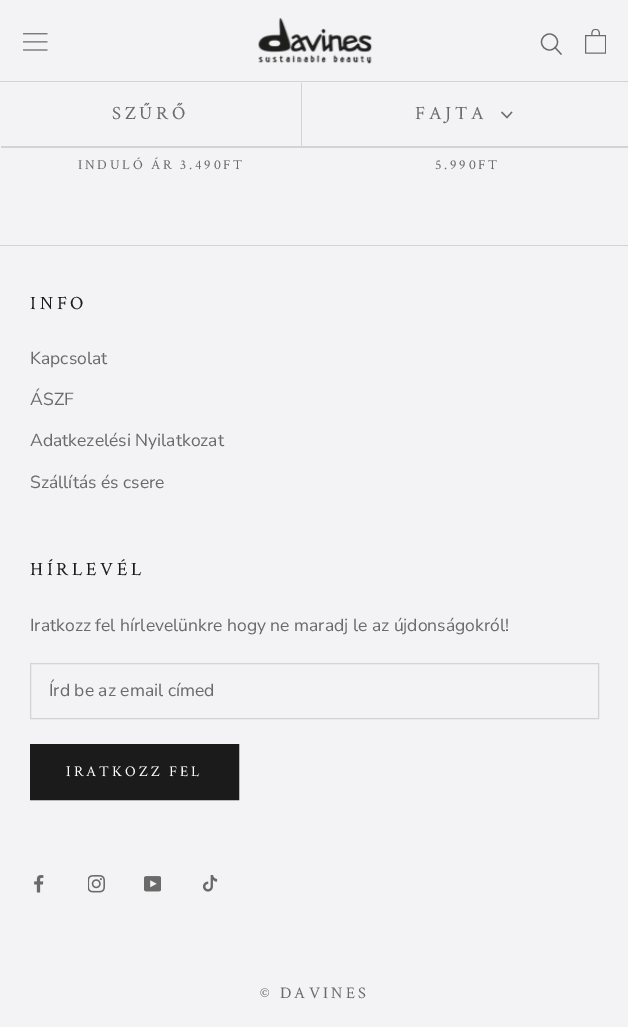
%!PS
<< /PageSize [628 1027] >> setpagedevice
/mt/moveto load def
/li/lineto load def
/cp/closepath load def
/fl/fill load def
/st/stroke load def
/lw/setlinewidth load def
/co { dup -16 bitshift 255 div exch dup -8 bitshift 255 and 255 div exch 255 and 255 div setrgbcolor } def
/fn { [ exch dup neg 0 0 3 -1 roll 0 0 ] selectfont } def
/tx { co fn moveto show } def
/bx { co rectfill } def
/ci { newpath 0 360 arc closepath } def
/im { 5 dict begin { /h /w /y /x /name } { exch def } forall
  gsave x y translate w h scale
  w h 8 [w 0 0 h 0 0] name (r) file false 3 colorimage grestore end } def
0 1027 translate 1 -1 scale
4 setmiterlimit
0 0 628 1027 16#F3F3F5 bx
0 81 628 1 16#D3D3D4 bx
(media/1.raw) 23 33 25 18 im
(media/2.raw) 258 18 114 46 im
16#6A6A6A co
1.2 lw
2 setlinecap
561 54 mt 555 47.5 li st
0 setlinecap
549.5 42 8 ci st
(media/3.raw) 585 29 21 25 im
16#D3D3D4 co
1 146 mt 1 148 li 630 148 li 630 84 li 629 84 li 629 146 li cp fl
301 83 1 63 16#D3D3D4 bx
16#6A6A6A co
2 setlinecap
511.5 112.5 mt 507 117.5 li 502 112.5 li st
0 245 628 1 16#D3D3D4 bx
1 lw
0 setlinecap
30.5 663.5 568 55 rectstroke
16#1C1B1B co
30.5 744.5 208 55 rectstroke
31 745 207 54 16#1C1B1B bx
(media/4.raw) 34 875 10 18 im
(media/5.raw) 88 875 17 18 im
(media/6.raw) 144 876 17 16 im
(media/7.raw) 202 875 16 17 im
/CrimsonText-Regular 18.75 fn
16#6A6A6A co
112 119 mt 3.75 0 (SZŰRŐ) ashow
415 119 mt 3.75 0 (FAJTA) ashow
/CrimsonText-Regular 13.75 fn
78 169 mt 2.75 0 (INDULÓ ÁR 3.490FT) ashow
435 169 mt 2.75 0 (5.990FT) ashow
/CrimsonText-Regular 18.75 fn
16#1C1B1B co
30 309 mt 3.75 0 (INFO) ashow
(Kapcsolat) 30 364 /NunitoSans-Regular 17.5 16#6A6A6A tx
(ÁSZF) 30 405 /NunitoSans-Regular 17.5 16#6A6A6A tx
(Adatkezelési Nyilatkozat) 30 446 /NunitoSans-Regular 17.5 16#6A6A6A tx
(Szállítás és csere) 30 488 /NunitoSans-Regular 17.5 16#6A6A6A tx
/CrimsonText-Regular 18.75 fn
16#1C1B1B co
30 575 mt 3.75 0 (HÍRLEVÉL) ashow
(Iratkozz fel hírlevelünkre hogy ne maradj le az újdonságokról!) 30 631 /NunitoSans-Regular 17.5 16#6A6A6A tx
(Írd be az email címed) 49 696 /NunitoSans-Regular 17.5 16#6A6A6A tx
/CrimsonText-Regular 15 fn
16#FFFFFF co
66 776 mt 3 0 (IRATKOZZ FEL) ashow
/CrimsonText-Regular 16.25 fn
16#6A6A6A co
260 998 mt 3.25 0 (© DAVINES) ashow
showpage
